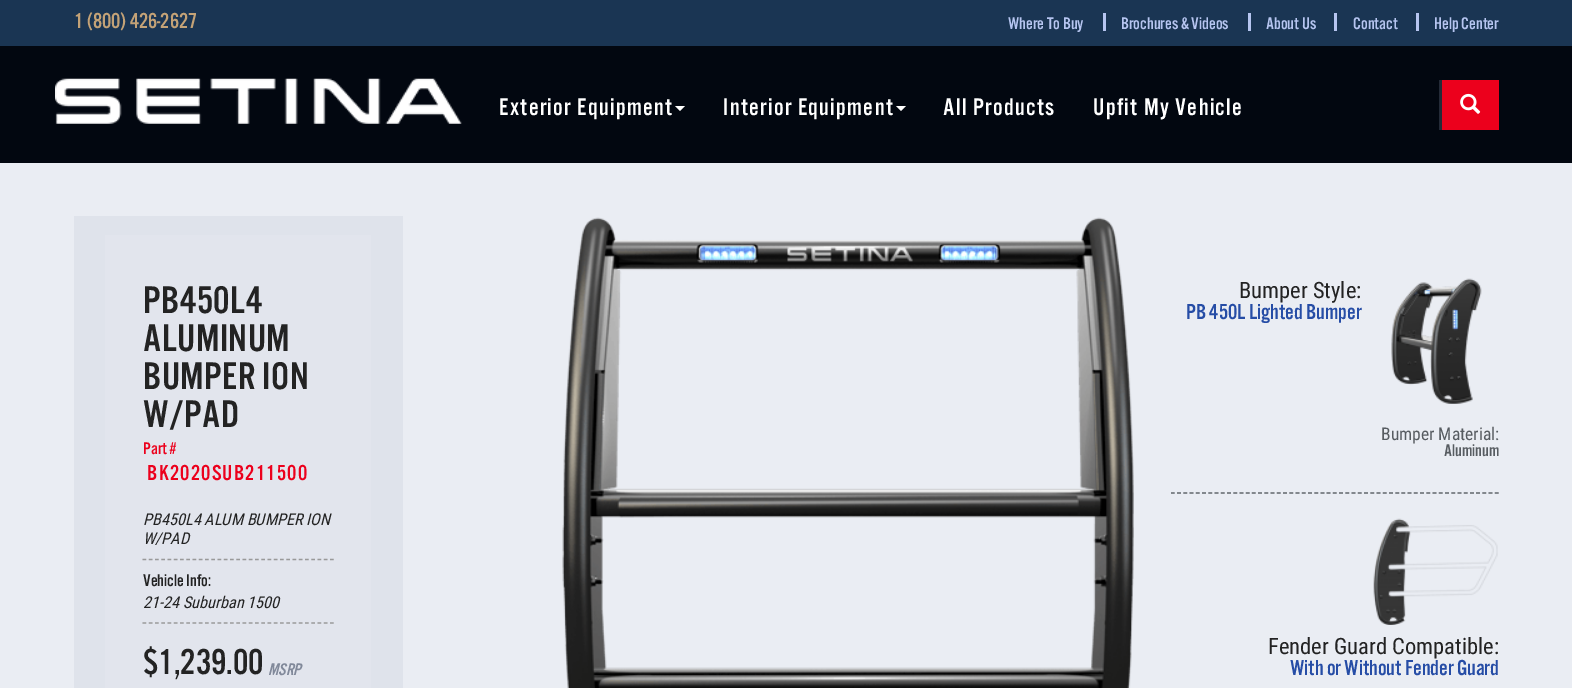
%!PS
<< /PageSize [1572 688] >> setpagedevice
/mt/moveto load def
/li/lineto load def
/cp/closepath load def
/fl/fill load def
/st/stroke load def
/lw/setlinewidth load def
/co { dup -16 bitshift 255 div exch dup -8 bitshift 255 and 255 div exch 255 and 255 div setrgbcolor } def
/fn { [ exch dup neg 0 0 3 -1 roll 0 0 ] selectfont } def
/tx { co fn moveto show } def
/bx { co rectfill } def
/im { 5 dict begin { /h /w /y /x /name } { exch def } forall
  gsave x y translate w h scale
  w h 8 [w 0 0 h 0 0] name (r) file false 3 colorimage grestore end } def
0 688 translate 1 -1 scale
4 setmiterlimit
0 0 1572 688 16#1A3553 bx
1103 13 3 18 16#B6C5F0 bx
1248 13 3 18 16#B6C5F0 bx
1334 13 3 18 16#B6C5F0 bx
1416 13 3 18 16#B6C5F0 bx
0 46 1572 117 16#020710 bx
(media/1.raw) 55 78 407 46 im
16#FFFFFF co
675 106 mt 685 106 li 680 111 li cp fl
896 106 mt 906 106 li 901 111 li cp fl
1439 80 3 50 16#242B38 bx
1442 80 57 50 16#EC001C bx
(media/2.raw) 1460 93 21 21 im
0 163 1572 525 16#EAEDF3 bx
74 216 329 472 16#DFE3EB bx
105 235 266 453 16#E2E5ED bx
16#999999 co
1.2 lw
[3.75 2.5] 0 setdash
142.5 559.5 mt 334 559.5 li st
142.5 623 mt 334 623 li st
(media/3.raw) 562 217 572 471 im
(media/4.raw) 1391 278 91 126 im
16#5F6469 co
[3.75 2.48] 0 setdash
1171 493 mt 1499 493 li st
(media/5.raw) 1373 518 125 107 im
(1 \(800\) 426-2627) 74 28 /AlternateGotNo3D-Regular 22.5 16#C3A277 tx
(Where To Buy) 1008 29 /AlternateGotNo3D-Regular 17.5 16#B6C5F0 tx
(Brochures & Videos) 1121 29 /AlternateGotNo3D-Regular 17.5 16#B6C5F0 tx
(About Us) 1266 29 /AlternateGotNo3D-Regular 17.5 16#B6C5F0 tx
(Contact) 1353 29 /AlternateGotNo3D-Regular 17.5 16#B6C5F0 tx
(Help Center) 1434 29 /AlternateGotNo3D-Regular 17.5 16#B6C5F0 tx
/AlternateGotNo3D-Regular 25 fn
16#FFFFFF co
499 115 mt 1.4 0 (Exterior Equipment) ashow
723 115 mt 1.4 0 (Interior Equipment) ashow
943 115 mt 1.4 0 (All Products) ashow
1093 115 mt 1.4 0 (Upfit My Vehicle) ashow
/AlternateGotNo3D-Regular 40 fn
16#232323 co
143 313 mt .5 0 (PB450L4) ashow
143 351 mt .5 0 (ALUMINUM) ashow
143 389 mt .5 0 (BUMPER ION) ashow
143 427 mt .5 0 (W/PAD) ashow
(Part #) 143 454 /AlternateGotNo3D-Regular 17.5 16#EC001C tx
/AlternateGotNo3D-Regular 22.5 fn
147 480 mt 1.25 0 (BK2020SUB211500) ashow
(PB450L4 ALUM BUMPER ION) 143 525 /RobotoCondensed-Italic 16.25 16#232323 tx
(W/PAD) 143 544 /RobotoCondensed-Italic 16.25 16#232323 tx
(Vehicle Info:) 143 586 /AlternateGotNo3D-Regular 17.5 16#232323 tx
(21-24 Suburban 1500) 143 608 /RobotoCondensed-Italic 16.25 16#232323 tx
($1,239.00) 143 674 /AlternateGotNo3D-Regular 37.5 16#232323 tx
(MSRP) 268 675 /AlternateGotNo3D-Italic 17.5 16#81899A tx
(Bumper Style:) 1239 298 /RobotoCondensed-Regular 22.5 16#232323 tx
(PB 450L Lighted Bumper) 1186 319 /AlternateGotNo3D-Regular 22.5 16#264DA6 tx
(Bumper Material:) 1381 440 /RobotoCondensed-Regular 17.5 16#575C61 tx
(Aluminum) 1444 456 /AlternateGotNo3D-Regular 17.5 16#575C61 tx
(Fender Guard Compatible:) 1268 654 /RobotoCondensed-Regular 22.5 16#232323 tx
(With or Without Fender Guard) 1290 675 /AlternateGotNo3D-Regular 22.5 16#264DA6 tx
showpage
